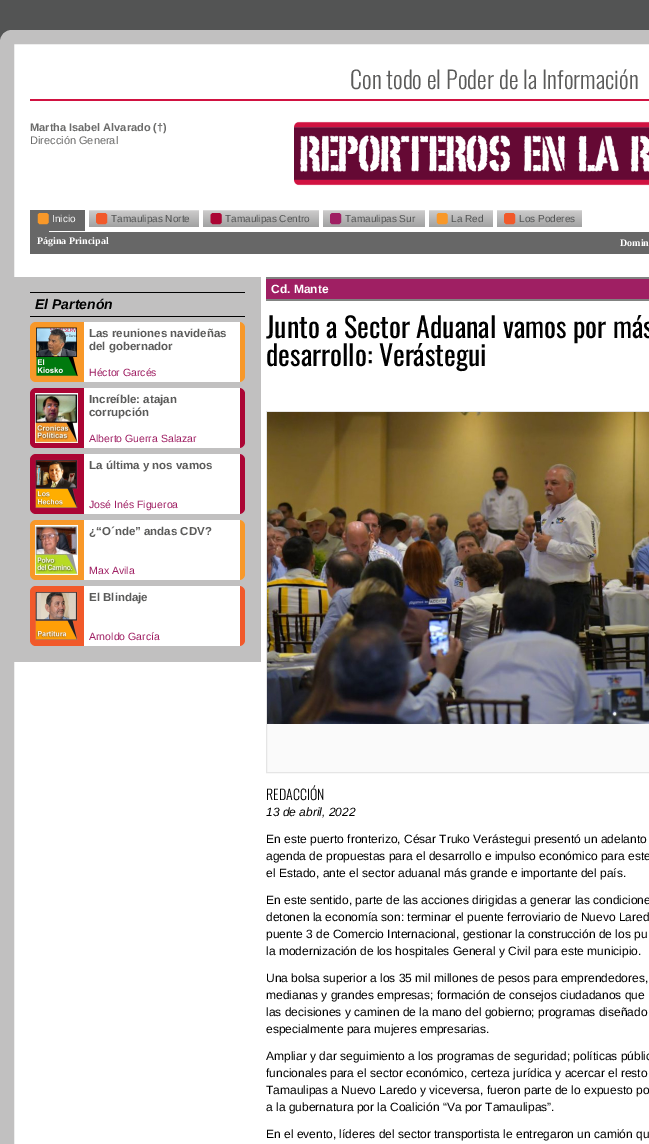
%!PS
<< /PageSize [649 1144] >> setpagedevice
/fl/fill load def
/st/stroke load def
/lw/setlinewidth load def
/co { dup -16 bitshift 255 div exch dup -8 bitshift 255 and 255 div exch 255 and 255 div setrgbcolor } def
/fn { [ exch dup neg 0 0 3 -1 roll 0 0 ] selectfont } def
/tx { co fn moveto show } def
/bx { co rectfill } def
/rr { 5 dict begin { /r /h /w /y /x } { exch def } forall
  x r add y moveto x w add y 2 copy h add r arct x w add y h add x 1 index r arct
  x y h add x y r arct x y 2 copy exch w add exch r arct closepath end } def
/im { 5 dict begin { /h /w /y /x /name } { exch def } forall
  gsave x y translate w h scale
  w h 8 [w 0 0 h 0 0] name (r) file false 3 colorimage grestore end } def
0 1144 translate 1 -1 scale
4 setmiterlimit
0 0 649 1144 16#535454 bx
14 44 635 1100 16#FFFFFF bx
16#C1C0C0 co
14 lw
7 37 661 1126 5 rr st
30 99 619 2 16#D11241 bx
(media/1.raw) 294 121 355 65 im
30 210 19 22 16#676767 bx
(media/2.raw) 37 213 12 12 im
(media/3.raw) 89 210 110 17 im
(media/4.raw) 203 210 116 17 im
(media/5.raw) 323 210 102 17 im
(media/6.raw) 429 210 64 17 im
(media/7.raw) 497 210 85 17 im
49 210 36 21 16#676767 bx
(media/8.raw) 96 213 12 12 im
(media/9.raw) 210 213 12 12 im
(media/10.raw) 330 213 12 12 im
(media/11.raw) 436 213 12 12 im
(media/8.raw) 504 213 12 12 im
30 232 619 22 16#676767 bx
14 277 247 385 16#C1C0C0 bx
30 292 215 1 16#000000 bx
30 316 215 1 16#000000 bx
16#F89829 co
30 322 215 60 6 rr fl
(media/12.raw) 36 327 42 50 im
84 322 156 60 16#FFFFFF bx
16#AB0534 co
30 388 215 60 6 rr fl
(media/13.raw) 35 393 43 50 im
84 388 156 60 16#FFFFFF bx
16#AB0534 co
30 454 215 60 6 rr fl
(media/14.raw) 35 459 43 50 im
84 454 156 60 16#FFFFFF bx
16#F89829 co
30 520 215 60 6 rr fl
(media/15.raw) 35 525 43 50 im
84 520 156 60 16#FFFFFF bx
16#F1592A co
30 586 215 60 6 rr fl
(media/16.raw) 35 591 43 50 im
84 586 156 60 16#FFFFFF bx
266 279 383 20 16#9F1F63 bx
266 277 383 2 16#818381 bx
266 299 383 2 16#818381 bx
267 724 382 48 16#FAFAFA bx
16#E5E5E5 co
1 lw
266.5 411.5 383 361 rectstroke
(media/17.raw) 267 412 382 312 im
(Con todo el Poder de la Información) 350 89 /Oswald-Light 24 16#5B5B5A tx
(Martha Isabel Alvarado \(†\)) 30 131 /LiberationSans-Bold 11 16#6B6B6A tx
(Dirección General) 30 144 /LiberationSans-Regular 11 16#6B6B6A tx
(Inicio) 52 222 /LiberationSans-Regular 10 16#FFFFFF tx
(Tamaulipas Norte) 111 222 /LiberationSans-Regular 10 16#525353 tx
(Tamaulipas Centro) 225 222 /LiberationSans-Regular 10 16#525353 tx
(Tamaulipas Sur) 345 222 /LiberationSans-Regular 10 16#525353 tx
(La Red) 451 222 /LiberationSans-Regular 10 16#525353 tx
(Los Poderes) 519 222 /LiberationSans-Regular 10 16#525353 tx
(Página Principal) 37 244 /LiberationSerif-Bold 10 16#FFFFFF tx
(Domin) 620 246 /LiberationSerif-Bold 10 16#FFFFFF tx
(El Partenón) 35 309 /LiberationSans-BoldItalic 14 16#000000 tx
(Las reuniones navideñas) 89 337 /LiberationSans-Bold 11.5 16#5B5B5A tx
(del gobernador) 89 350 /LiberationSans-Bold 11.5 16#5B5B5A tx
(Héctor Garcés) 89 376 /LiberationSans-Regular 10.5 16#9F1F63 tx
(Increíble: atajan) 89 403 /LiberationSans-Bold 11.5 16#5B5B5A tx
(corrupción) 89 416 /LiberationSans-Bold 11.5 16#5B5B5A tx
(Alberto Guerra Salazar) 89 442 /LiberationSans-Regular 10.5 16#9F1F63 tx
(La última y nos vamos) 89 469 /LiberationSans-Bold 11.5 16#5B5B5A tx
(José Inés Figueroa) 89 508 /LiberationSans-Regular 10.5 16#9F1F63 tx
(¿“O´nde” andas CDV?) 89 535 /LiberationSans-Bold 11.5 16#5B5B5A tx
(Max Avila) 89 574 /LiberationSans-Regular 10.5 16#9F1F63 tx
(El Blindaje) 89 601 /LiberationSans-Bold 11.5 16#5B5B5A tx
(Arnoldo García) 89 640 /LiberationSans-Regular 10.5 16#9F1F63 tx
(Cd. Mante) 271 293 /LiberationSans-Bold 12 16#FFFFFF tx
(Junto a Sector Aduanal vamos por más) 266 338 /Oswald-Regular 28 16#000000 tx
(desarrollo: Verástegui) 266 366 /Oswald-Regular 28 16#000000 tx
(REDACCIÓN) 266 800 /Oswald-Light 14 16#000000 tx
(13 de abril, 2022) 266 816 /LiberationSans-Italic 12 16#000000 tx
(En este puerto fronterizo, César Truko Verástegui presentó un adelanto) 266 843 /LiberationSans-Regular 12 16#000000 tx
(agenda de propuestas para el desarrollo e impulso económico para este) 266 860 /LiberationSans-Regular 12 16#000000 tx
(el Estado, ante el sector aduanal más grande e importante del país.) 266 877 /LiberationSans-Regular 12 16#000000 tx
(En este sentido, parte de las acciones dirigidas a generar las condicione) 266 904 /LiberationSans-Regular 12 16#000000 tx
(detonen la economía son: terminar el puente ferroviario de Nuevo Lared) 266 921 /LiberationSans-Regular 12 16#000000 tx
(puente 3 de Comercio Internacional, gestionar la construcción de los pu) 266 938 /LiberationSans-Regular 12 16#000000 tx
(la modernización de los hospitales General y Civil para este municipio.) 266 955 /LiberationSans-Regular 12 16#000000 tx
(Una bolsa superior a los 35 mil millones de pesos para emprendedores,) 266 982 /LiberationSans-Regular 12 16#000000 tx
(medianas y grandes empresas; formación de consejos ciudadanos que) 266 999 /LiberationSans-Regular 12 16#000000 tx
(las decisiones y caminen de la mano del gobierno; programas diseñado) 266 1016 /LiberationSans-Regular 12 16#000000 tx
(especialmente para mujeres empresarias.) 266 1033 /LiberationSans-Regular 12 16#000000 tx
(Ampliar y dar seguimiento a los programas de seguridad; políticas públic) 266 1060 /LiberationSans-Regular 12 16#000000 tx
(funcionales para el sector económico, certeza jurídica y acercar el resto) 266 1077 /LiberationSans-Regular 12 16#000000 tx
(Tamaulipas a Nuevo Laredo y viceversa, fueron parte de lo expuesto po) 266 1094 /LiberationSans-Regular 12 16#000000 tx
(a la gubernatura por la Coalición “Va por Tamaulipas”.) 266 1111 /LiberationSans-Regular 12 16#000000 tx
(En el evento, líderes del sector transportista le entregaron un camión qu) 266 1138 /LiberationSans-Regular 12 16#000000 tx
showpage
